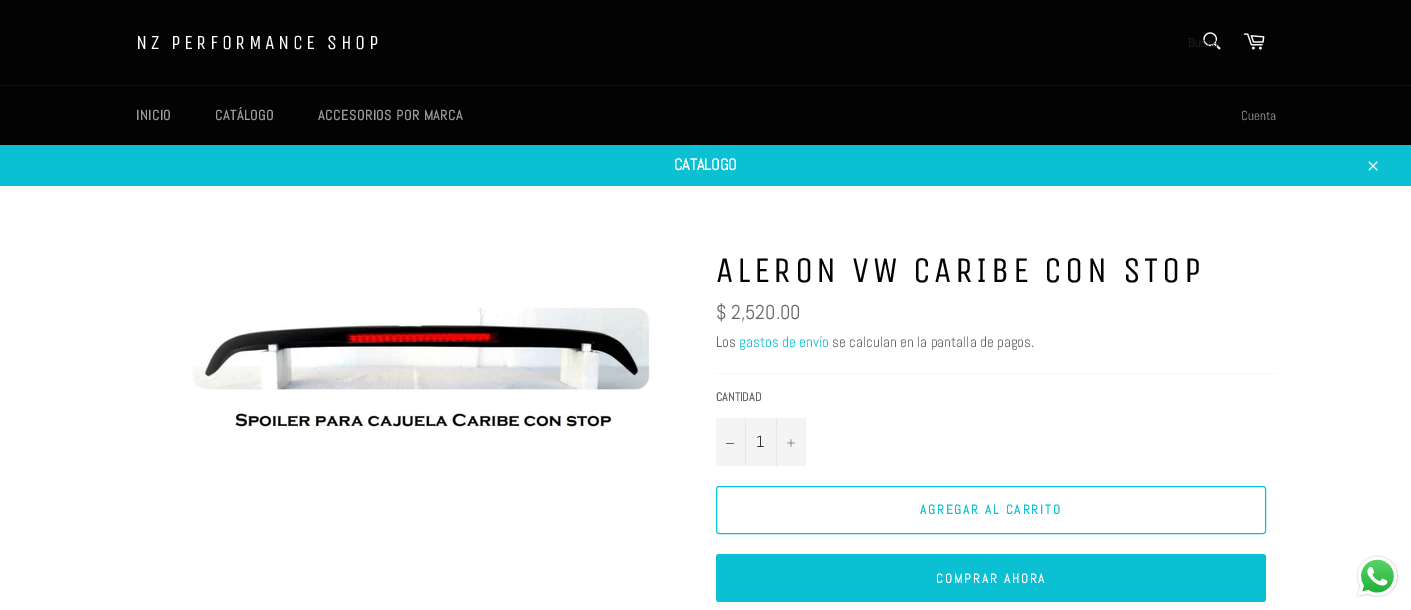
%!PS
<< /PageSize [1411 610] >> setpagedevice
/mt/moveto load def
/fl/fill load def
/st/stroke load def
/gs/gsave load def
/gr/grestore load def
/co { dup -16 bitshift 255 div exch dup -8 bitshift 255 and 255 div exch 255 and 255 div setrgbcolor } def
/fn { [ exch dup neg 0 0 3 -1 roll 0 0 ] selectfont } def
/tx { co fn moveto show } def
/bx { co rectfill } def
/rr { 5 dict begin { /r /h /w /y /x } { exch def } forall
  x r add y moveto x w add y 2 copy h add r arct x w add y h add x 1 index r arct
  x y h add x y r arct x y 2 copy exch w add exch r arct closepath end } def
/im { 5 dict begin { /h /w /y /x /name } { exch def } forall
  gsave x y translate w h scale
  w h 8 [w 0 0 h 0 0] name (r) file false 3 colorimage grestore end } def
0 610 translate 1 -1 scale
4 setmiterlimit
0 0 1411 610 16#030303 bx
(media/1.raw) 1203 32 18 18 im
(media/2.raw) 1243 33 22 17 im
0 85 1411 1 16#101010 bx
0 145 1411 41 16#0BC0D3 bx
(media/3.raw) 1368 161 10 10 im
0 186 1411 424 16#FFFFFF bx
(media/4.raw) 192 306 460 124 im
716 373 560 1 16#F7F7F7 bx
716 418 90 48 16#F4F4F4 bx
745 418 1 48 16#E7E7E7 bx
726 443 8 1 16#666666 bx
776 418 1 48 16#E7E7E7 bx
(media/5.raw) 787 439 8 8 im
16#0BC0D3 co
716.5 486.5 549 47 2.5 rr st
716 554 550 48 3 rr fl
(media/6.raw) 1356 555 43 43 im
/UnicaOne-Regular 20 fn
16#FFFFFF co
136 49 mt 3.6 0 (NZ PERFORMANCE SHOP) ashow
gs
1188 34 32 17 rectclip
(Buscar) 1188 47 /Abel-Regular 13 16#252525 tx
gr
/Abel-Bold 14 fn
16#9A9A9A co
136 120 mt .6 0 (INICIO) ashow
215 120 mt .6 0 (CATÁLOGO) ashow
318 120 mt .6 0 (ACCESORIOS POR MARCA) ashow
(Cuenta) 1241 120 /Abel-Regular 13 16#9A9A9A tx
(CATALOGO) 674 170 /Abel-Bold 16 16#FFFFFF tx
/UnicaOne-Regular 36 fn
16#030303 co
716 282 mt 3.6 0 (ALERON VW CARIBE CON STOP) ashow
($ 2,520.00) 716 319 /Abel-Regular 20 16#666666 tx
(Los) 716 347 /Abel-Regular 15 16#666666 tx
(gastos de envío) 739 347 /Abel-Regular 15 16#0BC0D3 tx
(se calculan en la pantalla de pagos.) 832 347 /Abel-Regular 15 16#666666 tx
(CANTIDAD) 716 401 /Abel-Bold 12 16#666666 tx
(1) 756 447 /Abel-Regular 16 16#333333 tx
/Abel-Bold 13 fn
16#0BC0D3 co
920 514 mt 2 0 (AGREGAR AL CARRITO) ashow
16#FFFFFF co
936 583 mt 2 0 (COMPRAR AHORA) ashow
showpage
